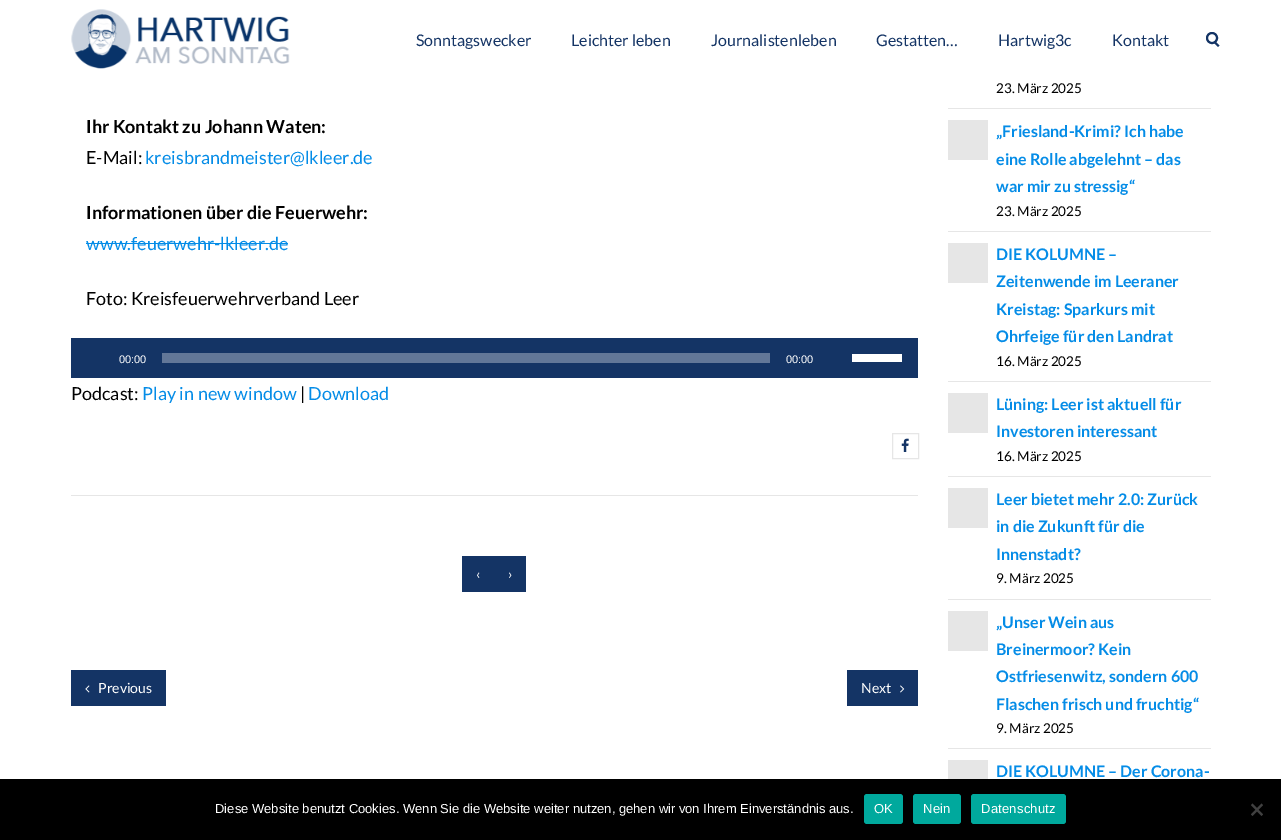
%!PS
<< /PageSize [1281 840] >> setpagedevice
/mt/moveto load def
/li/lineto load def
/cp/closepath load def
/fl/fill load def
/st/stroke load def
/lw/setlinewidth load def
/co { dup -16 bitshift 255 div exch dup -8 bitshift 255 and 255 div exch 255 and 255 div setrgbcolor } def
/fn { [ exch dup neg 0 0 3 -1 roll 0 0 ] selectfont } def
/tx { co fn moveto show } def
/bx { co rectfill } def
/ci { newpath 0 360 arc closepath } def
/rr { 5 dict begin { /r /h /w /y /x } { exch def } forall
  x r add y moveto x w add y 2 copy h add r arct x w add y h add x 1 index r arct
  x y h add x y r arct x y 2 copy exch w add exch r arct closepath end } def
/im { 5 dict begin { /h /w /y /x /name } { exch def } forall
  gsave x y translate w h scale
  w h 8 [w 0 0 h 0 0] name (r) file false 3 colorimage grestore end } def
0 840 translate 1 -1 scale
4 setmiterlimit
0 0 1281 840 16#FFFFFF bx
(media/1.raw) 71 9 219 60 im
16#143465 co
2 lw
1212 38 5 ci st
1213.5 42.5 mt 1215 41 li 1219.5 45.5 li 1218 47 li cp fl
86 243 202 1 16#048CE7 bx
71 338 847 40 16#143465 bx
162 353 608 10 16#627798 bx
852 354 50 8 16#FFFFFF bx
16#E6E6E6 co
1 lw
892.5 433.5 26 25 rectstroke
(media/2.raw) 901 438 8 14 im
71 495 847 1 16#E6E6E6 bx
462 556 64 36 16#143465 bx
71 670 95 36 16#143465 bx
(media/3.raw) 85 685 5 8 im
847 670 71 36 16#143465 bx
(media/4.raw) 900 685 5 8 im
948 108 263 1 16#E6E6E6 bx
948 231 263 1 16#E6E6E6 bx
948 120 40 40 16#E6E6E6 bx
948 381 263 1 16#E6E6E6 bx
948 243 40 40 16#E6E6E6 bx
948 476 263 1 16#E6E6E6 bx
948 393 40 40 16#E6E6E6 bx
948 599 263 1 16#E6E6E6 bx
948 488 40 40 16#E6E6E6 bx
948 748 263 1 16#E6E6E6 bx
948 611 40 40 16#E6E6E6 bx
948 760 40 19 16#E6E6E6 bx
0 779 1281 61 16#000000 bx
16#00A99D co
864 794 39 30 3 rr fl
913 794 48 30 3 rr fl
971 794 95 30 3 rr fl
16#404040 co
1261.5 803.5 mt 1263 805 li 1252.5 816 li 1251 814.5 li cp fl
1251 805 mt 1252.5 803.5 li 1263 814.5 li 1261.5 816 li cp fl
(Sonntagswecker) 416 46 /Lato-Regular 16 16#143465 tx
(Leichter leben) 571 46 /Lato-Regular 16 16#143465 tx
(Journalistenleben) 711 46 /Lato-Regular 16 16#143465 tx
(Gestatten…) 876 46 /Lato-Regular 16 16#143465 tx
(Hartwig3c) 998 46 /Lato-Regular 16 16#143465 tx
(Kontakt) 1112 46 /Lato-Regular 16 16#143465 tx
(Ihr Kontakt zu Johann Waten:) 86 133 /Lato-Bold 18 16#000000 tx
(E-Mail:) 86 164 /Lato-Regular 18 16#000000 tx
(kreisbrandmeister@lkleer.de) 145 164 /Lato-Regular 18 16#048CE7 tx
(Informationen über die Feuerwehr:) 86 219 /Lato-Bold 18 16#000000 tx
(www.feuerwehr-lkleer.de) 86 250 /Lato-Regular 18 16#048CE7 tx
(Foto: Kreisfeuerwehrverband Leer) 86 305 /Lato-Regular 18 16#000000 tx
(00:00) 119 363 /LiberationSans-Regular 11 16#FFFFFF tx
(00:00) 786 363 /LiberationSans-Regular 11 16#FFFFFF tx
(Podcast:) 71 400 /Lato-Regular 18 16#000000 tx
(Play in new window) 142 400 /Lato-Regular 18 16#048CE7 tx
(|) 300 400 /Lato-Regular 18 16#000000 tx
(Download) 308 400 /Lato-Regular 18 16#048CE7 tx
(‹) 476 579 /Lato-Regular 14 16#FFFFFF tx
(›) 508 579 /Lato-Regular 14 16#FFFFFF tx
(Previous) 98 693 /Lato-Regular 14 16#FFFFFF tx
(Next) 861 693 /Lato-Regular 14 16#FFFFFF tx
(23. März 2025) 996 93 /Lato-Regular 13.5 16#000000 tx
(„Friesland-Krimi? Ich habe) 996 137 /Lato-Bold 16 16#048CE7 tx
(eine Rolle abgelehnt – das) 996 165 /Lato-Bold 16 16#048CE7 tx
(war mir zu stressig“) 996 192 /Lato-Bold 16 16#048CE7 tx
(23. März 2025) 996 216 /Lato-Regular 13.5 16#000000 tx
(DIE KOLUMNE –) 996 260 /Lato-Bold 16 16#048CE7 tx
(Zeitenwende im Leeraner) 996 287 /Lato-Bold 16 16#048CE7 tx
(Kreistag: Sparkurs mit) 996 315 /Lato-Bold 16 16#048CE7 tx
(Ohrfeige für den Landrat) 996 342 /Lato-Bold 16 16#048CE7 tx
(16. März 2025) 996 366 /Lato-Regular 13.5 16#000000 tx
(Lüning: Leer ist aktuell für) 996 410 /Lato-Bold 16 16#048CE7 tx
(Investoren interessant) 996 437 /Lato-Bold 16 16#048CE7 tx
(16. März 2025) 996 461 /Lato-Regular 13.5 16#000000 tx
(Leer bietet mehr 2.0: Zurück) 996 505 /Lato-Bold 16 16#048CE7 tx
(in die Zukunft für die) 996 532 /Lato-Bold 16 16#048CE7 tx
(Innenstadt?) 996 560 /Lato-Bold 16 16#048CE7 tx
(9. März 2025) 996 583 /Lato-Regular 13.5 16#000000 tx
(„Unser Wein aus) 996 628 /Lato-Bold 16 16#048CE7 tx
(Breinermoor? Kein) 996 655 /Lato-Bold 16 16#048CE7 tx
(Ostfriesenwitz, sondern 600) 996 682 /Lato-Bold 16 16#048CE7 tx
(Flaschen frisch und fruchtig“) 996 710 /Lato-Bold 16 16#048CE7 tx
(9. März 2025) 996 733 /Lato-Regular 13.5 16#000000 tx
(DIE KOLUMNE – Der Corona-) 996 777 /Lato-Bold 16 16#048CE7 tx
(Diese Website benutzt Cookies. Wenn Sie die Website weiter nutzen, gehen wir von Ihrem Einverständnis aus.) 215 813 /LiberationSans-Regular 13 16#FFFFFF tx
874 813 mt .25 0 (OK) ashow
923 813 mt .25 0 (Nein) ashow
981 813 mt .25 0 (Datenschutz) ashow
showpage
